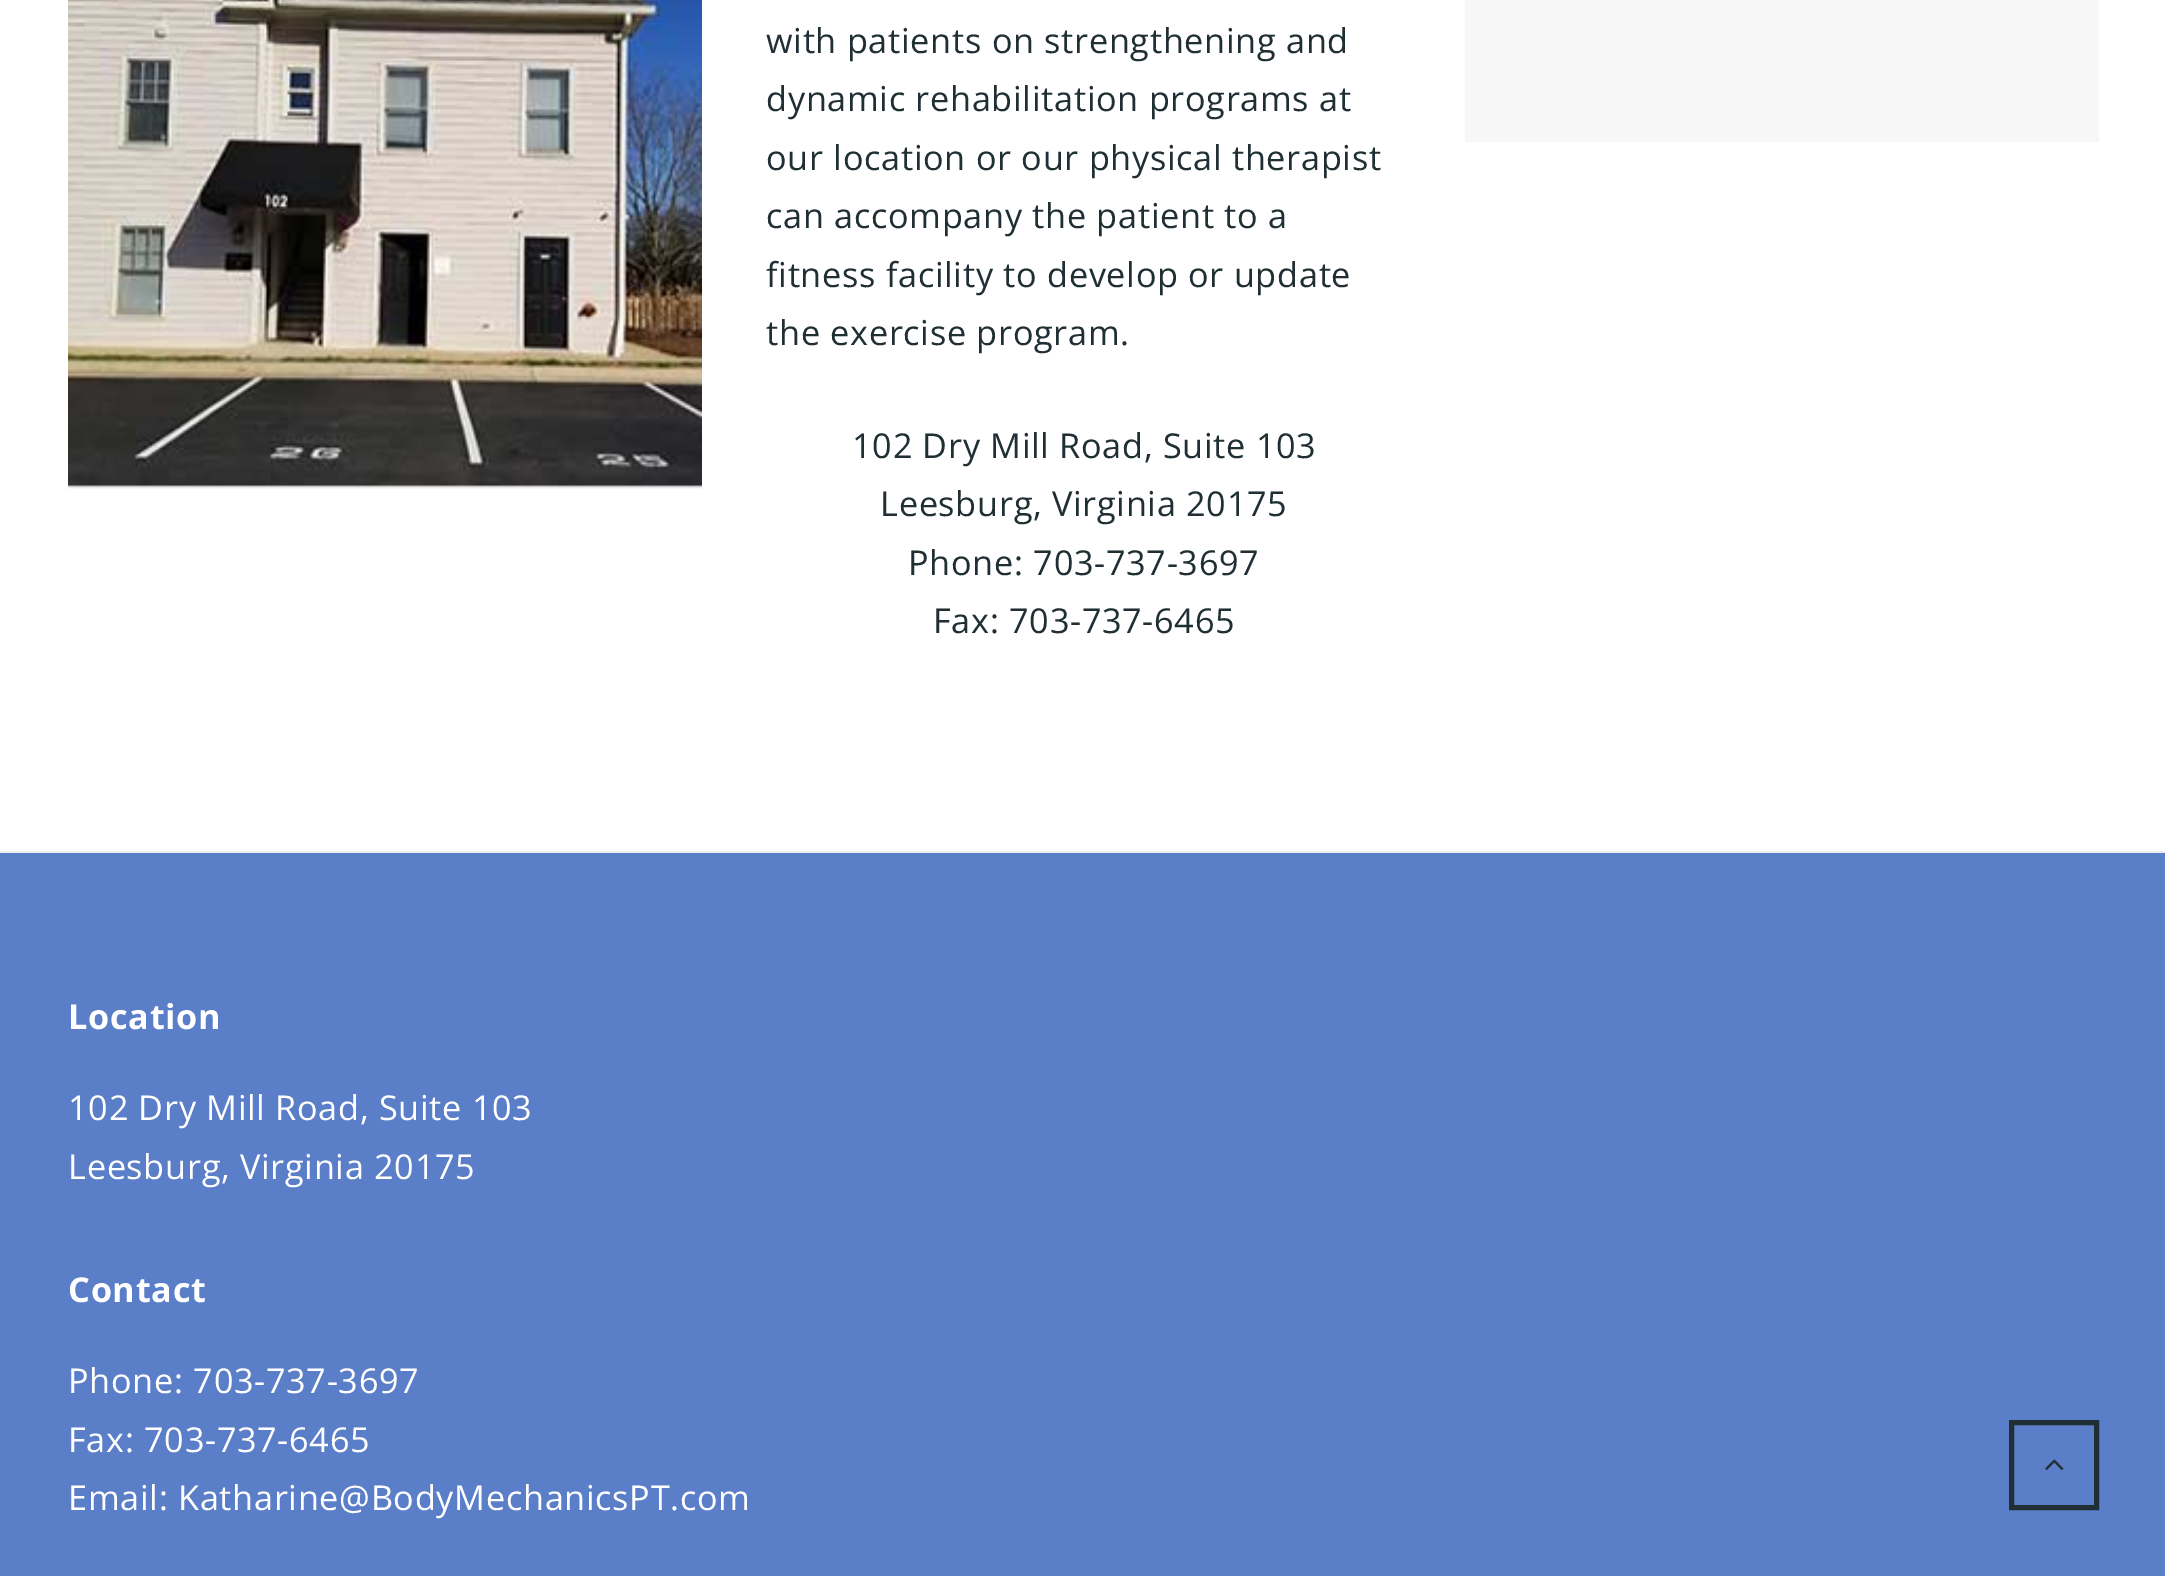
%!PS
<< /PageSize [2165 1576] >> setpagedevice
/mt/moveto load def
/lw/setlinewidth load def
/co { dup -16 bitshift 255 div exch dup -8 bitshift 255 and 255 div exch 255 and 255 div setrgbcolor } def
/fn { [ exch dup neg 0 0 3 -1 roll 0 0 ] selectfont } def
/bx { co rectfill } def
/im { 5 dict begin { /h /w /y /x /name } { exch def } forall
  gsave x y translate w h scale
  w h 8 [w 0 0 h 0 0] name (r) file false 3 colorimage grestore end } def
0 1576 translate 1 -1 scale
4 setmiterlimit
0 0 2165 1576 16#FFFFFF bx
(media/1.raw) 68 0 634 489 im
1465 0 634 142 16#F7F7F7 bx
0 853 2165 723 16#5A7EC8 bx
0 851 2165 2 16#EEEEEE bx
16#202F33 co
5 lw
2011.5 1422.5 85 85 rectstroke
(media/2.raw) 2045 1459 19 11 im
/OpenSans-Regular 34.25 fn
766 53 mt .7 0 (with patients on strengthening and) ashow
766 111 mt .7 0 (dynamic rehabilitation programs at) ashow
766 170 mt .7 0 (our location or our physical therapist) ashow
766 228 mt .7 0 (can accompany the patient to a) ashow
766 287 mt .7 0 (fitness facility to develop or update) ashow
766 345 mt .7 0 (the exercise program.) ashow
852 458 mt .7 0 (102 Dry Mill Road, Suite 103) ashow
880 516 mt .7 0 (Leesburg, Virginia 20175) ashow
908 575 mt .7 0 (Phone: 703-737-3697) ashow
933 633 mt .7 0 (Fax: 703-737-6465) ashow
/OpenSans-Bold 34.25 fn
16#FFFFFF co
68 1029 mt .7 0 (Location) ashow
/OpenSans-Regular 34.25 fn
68 1120 mt .7 0 (102 Dry Mill Road, Suite 103) ashow
68 1179 mt .7 0 (Leesburg, Virginia 20175) ashow
/OpenSans-Bold 34.25 fn
68 1302 mt .7 0 (Contact) ashow
/OpenSans-Regular 34.25 fn
68 1393 mt .7 0 (Phone: 703-737-3697) ashow
68 1452 mt .7 0 (Fax: 703-737-6465) ashow
68 1510 mt .7 0 (Email: Katharine@BodyMechanicsPT.com) ashow
showpage
